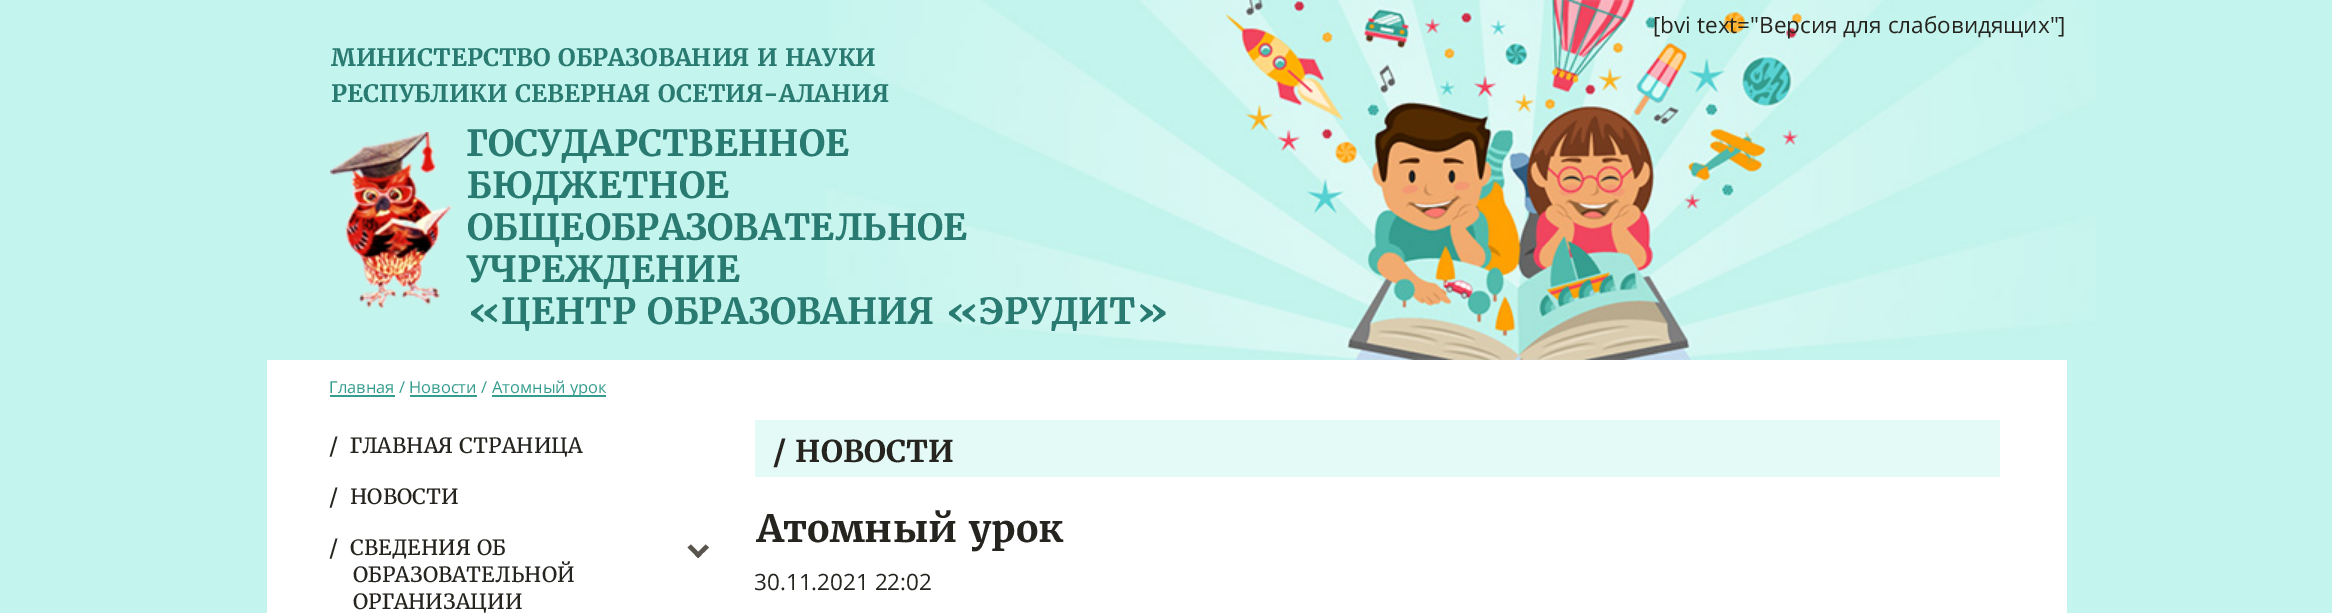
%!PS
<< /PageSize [2332 613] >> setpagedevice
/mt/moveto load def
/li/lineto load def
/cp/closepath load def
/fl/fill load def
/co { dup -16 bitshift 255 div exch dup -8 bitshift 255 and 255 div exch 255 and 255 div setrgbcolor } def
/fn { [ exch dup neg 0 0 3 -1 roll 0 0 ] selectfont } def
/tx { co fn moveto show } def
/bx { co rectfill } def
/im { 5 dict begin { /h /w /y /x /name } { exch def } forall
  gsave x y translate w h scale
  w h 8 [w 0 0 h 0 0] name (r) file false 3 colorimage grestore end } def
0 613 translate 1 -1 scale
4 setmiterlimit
0 0 2332 613 16#C3F4ED bx
(media/1.raw) 826 0 1270 360 im
(media/2.raw) 330 132 122 176 im
267 360 1800 253 16#FFFFFF bx
330 395 65 2 16#359D8E bx
492 395 114 2 16#359D8E bx
410 395 67 2 16#359D8E bx
755 420 1245 57 16#E4FAF7 bx
16#5A544F co
705.5 544.5 mt 709 547.5 li 698 558 li 695 555 li cp fl
691 544.5 mt 701.5 555 li 698 558 li 687.5 547.5 li cp fl
([bvi text="Версия для слабовидящих"]) 1653 33 /OpenSans-Regular 22.5 16#26241F tx
(МИНИСТЕРСТВО ОБРАЗОВАНИЯ И НАУКИ) 331 66 /Merriweather-Bold 24 16#297A71 tx
(РЕСПУБЛИКИ СЕВЕРНАЯ ОСЕТИЯ-АЛАНИЯ) 331 102 /Merriweather-Bold 24 16#297A71 tx
(ГОСУДАРСТВЕННОЕ) 467 156 /Merriweather-Bold 36 16#297A71 tx
(БЮДЖЕТНОЕ) 467 198 /Merriweather-Bold 36 16#297A71 tx
(ОБЩЕОБРАЗОВАТЕЛЬНОЕ) 467 240 /Merriweather-Bold 36 16#297A71 tx
(УЧРЕЖДЕНИЕ) 467 282 /Merriweather-Bold 36 16#297A71 tx
(«ЦЕНТР ОБРАЗОВАНИЯ «ЭРУДИТ») 467 324 /Merriweather-Bold 36 16#297A71 tx
(Главная / Новости /) 329 393 /OpenSans-Regular 16.5 16#359D8E tx
(Атомный урок) 492 393 /OpenSans-Regular 16.5 16#359D8E tx
(/ НОВОСТИ) 773 462 /Merriweather-Bold 30 16#26241F tx
(Атомный урок) 757 542 /Merriweather-Bold 37.5 16#26241F tx
(30.11.2021 22:02) 754 590 /OpenSans-Regular 22.5 16#26241F tx
(/) 329 453 /Merriweather-Regular 21 16#26241F tx
(ГЛАВНАЯ СТРАНИЦА) 350 453 /Merriweather-Regular 21 16#26241F tx
(/) 329 504 /Merriweather-Regular 21 16#26241F tx
(НОВОСТИ) 350 504 /Merriweather-Regular 21 16#26241F tx
(/) 329 555 /Merriweather-Regular 21 16#26241F tx
(СВЕДЕНИЯ ОБ) 350 555 /Merriweather-Regular 21 16#26241F tx
(ОБРАЗОВАТЕЛЬНОЙ) 353 582 /Merriweather-Regular 21 16#26241F tx
(ОРГАНИЗАЦИИ) 353 609 /Merriweather-Regular 21 16#26241F tx
showpage
